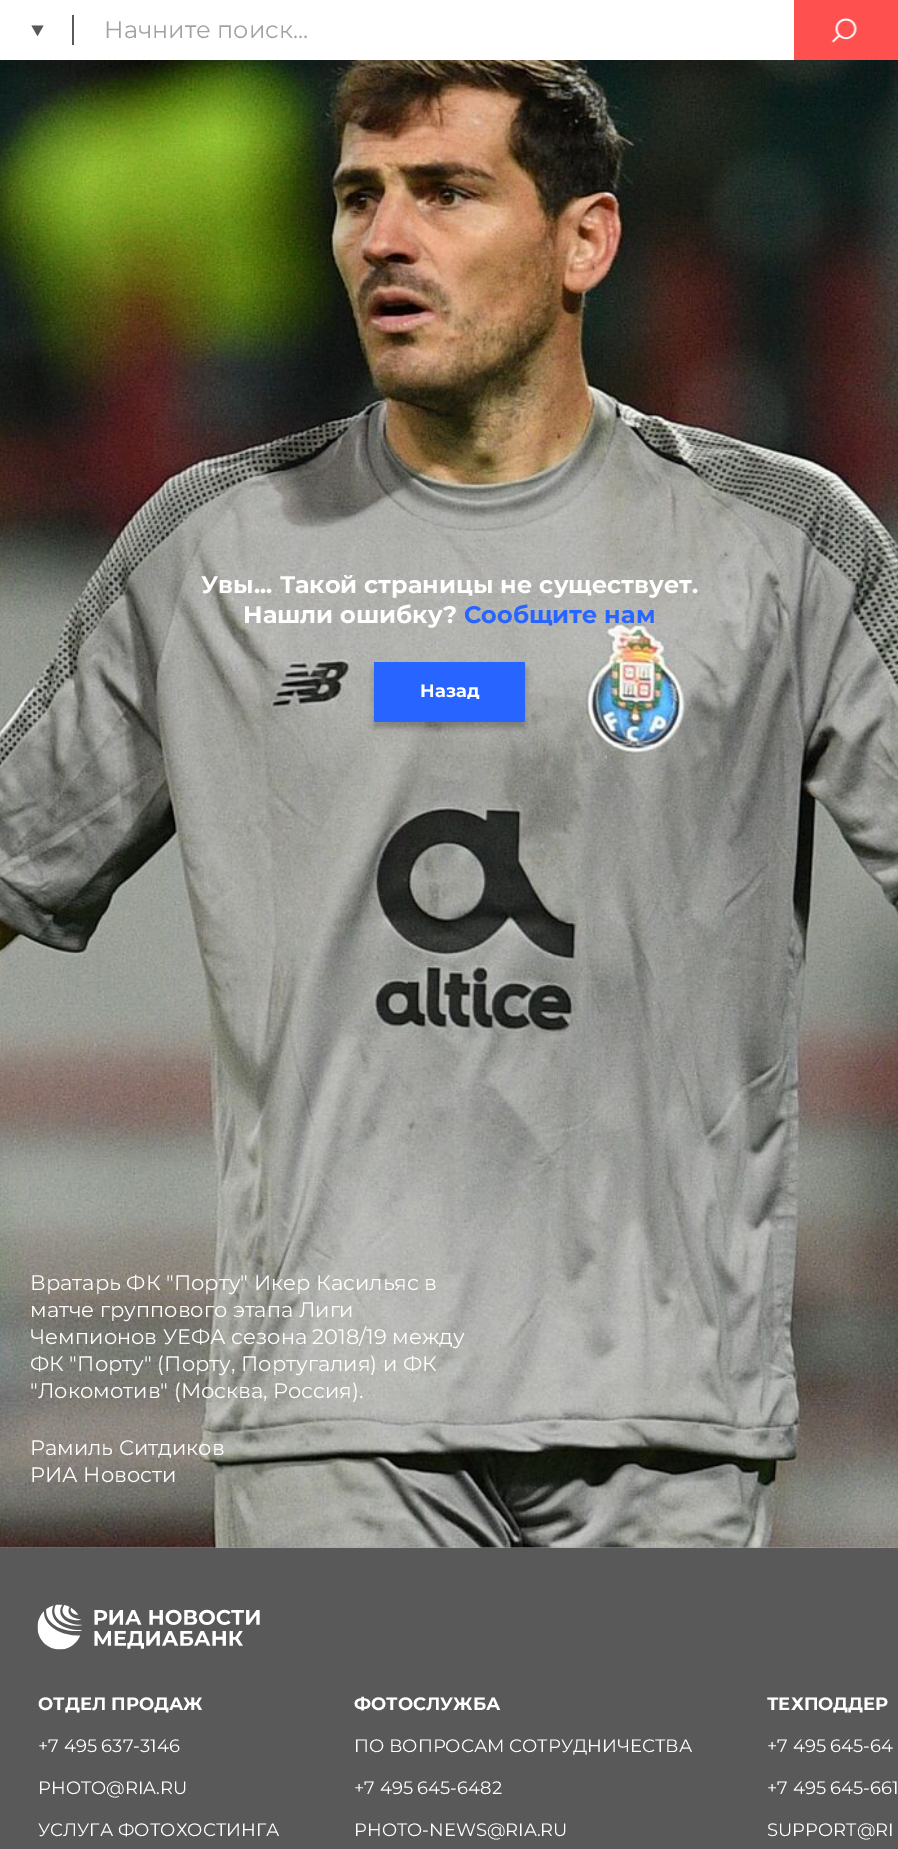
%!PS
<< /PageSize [898 1849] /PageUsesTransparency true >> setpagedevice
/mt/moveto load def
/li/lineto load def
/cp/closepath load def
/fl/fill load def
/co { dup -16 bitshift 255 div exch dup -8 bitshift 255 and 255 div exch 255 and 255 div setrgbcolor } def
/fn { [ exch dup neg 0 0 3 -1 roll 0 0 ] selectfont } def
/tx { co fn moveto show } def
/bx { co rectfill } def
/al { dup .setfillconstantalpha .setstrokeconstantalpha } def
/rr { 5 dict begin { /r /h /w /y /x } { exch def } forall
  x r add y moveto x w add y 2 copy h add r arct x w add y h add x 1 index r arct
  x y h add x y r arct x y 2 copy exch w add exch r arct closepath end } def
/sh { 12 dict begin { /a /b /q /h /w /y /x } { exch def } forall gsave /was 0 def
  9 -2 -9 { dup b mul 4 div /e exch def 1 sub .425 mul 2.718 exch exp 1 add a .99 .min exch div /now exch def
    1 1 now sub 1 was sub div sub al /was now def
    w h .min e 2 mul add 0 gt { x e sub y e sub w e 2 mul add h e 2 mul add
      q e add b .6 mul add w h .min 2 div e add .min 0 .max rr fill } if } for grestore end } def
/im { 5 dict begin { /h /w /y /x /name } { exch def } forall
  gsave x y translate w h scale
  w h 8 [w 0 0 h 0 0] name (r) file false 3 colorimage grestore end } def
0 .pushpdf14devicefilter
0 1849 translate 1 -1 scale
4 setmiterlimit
0 0 898 1849 16#A3A2A2 bx
(media/2.raw) 0 60 898 1488 im
16#000000 co
0 -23 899 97 0 7.5 .1 sh
0 0 794 60 16#FFFFFF bx
16#595959 co
31.5 25.5 mt 43.5 25.5 li 37.5 36 li cp fl
72 15 2 30 16#595959 bx
794 0 104 60 16#FF5050 bx
(media/1.raw) 831 18 26 25 im
16#000000 co
374 668 151 60 0 3 .25 sh
374 662 151 60 16#2864FF bx
0 1548 898 301 16#595959 bx
(media/3.raw) 37 1604 223 46 im
(Начните поиск...) 104 38 /Montserrat-Regular 24 16#A3A2A2 tx
(Увы... Такой страницы не существует.) 201 593 /Montserrat-Bold 24 16#FFFFFF tx
(Нашли ошибку?) 243 623 /Montserrat-Bold 24 16#FFFFFF tx
(Сообщите нам) 464 623 /Montserrat-Bold 24 16#2864FF tx
(Назад) 420 697 /Montserrat-Bold 18 16#FFFFFF tx
(Вратарь ФК "Порту" Икер Касильяс в) 30 1290 /Montserrat-Regular 21 16#FFFFFF tx
(матче группового этапа Лиги) 30 1317 /Montserrat-Regular 21 16#FFFFFF tx
(Чемпионов УЕФА сезона 2018/19 между) 30 1344 /Montserrat-Regular 21 16#FFFFFF tx
(ФК "Порту" \(Порту, Португалия\) и ФК) 30 1371 /Montserrat-Regular 21 16#FFFFFF tx
("Локомотив" \(Москва, Россия\).) 30 1398 /Montserrat-Regular 21 16#FFFFFF tx
(Рамиль Ситдиков) 30 1455 /Montserrat-Regular 21 16#FFFFFF tx
(РИА Новости) 30 1482 /Montserrat-Regular 21 16#FFFFFF tx
(ОТДЕЛ ПРОДАЖ) 38 1710 /Montserrat-Bold 18 16#FFFFFF tx
(+7 495 637-3146) 38 1752 /Montserrat-Regular 18 16#FFFFFF tx
(PHOTO@RIA.RU) 38 1794 /Montserrat-Regular 18 16#FFFFFF tx
(УСЛУГА ФОТОХОСТИНГА) 38 1836 /Montserrat-Regular 18 16#FFFFFF tx
(ФОТОСЛУЖБА) 354 1710 /Montserrat-Bold 18 16#FFFFFF tx
(ПО ВОПРОСАМ СОТРУДНИЧЕСТВА) 354 1752 /Montserrat-Regular 18 16#FFFFFF tx
(+7 495 645-6482) 354 1794 /Montserrat-Regular 18 16#FFFFFF tx
(PHOTO-NEWS@RIA.RU) 354 1836 /Montserrat-Regular 18 16#FFFFFF tx
(ТЕХПОДДЕР) 767 1710 /Montserrat-Bold 18 16#FFFFFF tx
(+7 495 645-64) 767 1752 /Montserrat-Regular 18 16#FFFFFF tx
(+7 495 645-661) 767 1794 /Montserrat-Regular 18 16#FFFFFF tx
(SUPPORT@RI) 767 1836 /Montserrat-Regular 18 16#FFFFFF tx
.poppdf14devicefilter showpage
